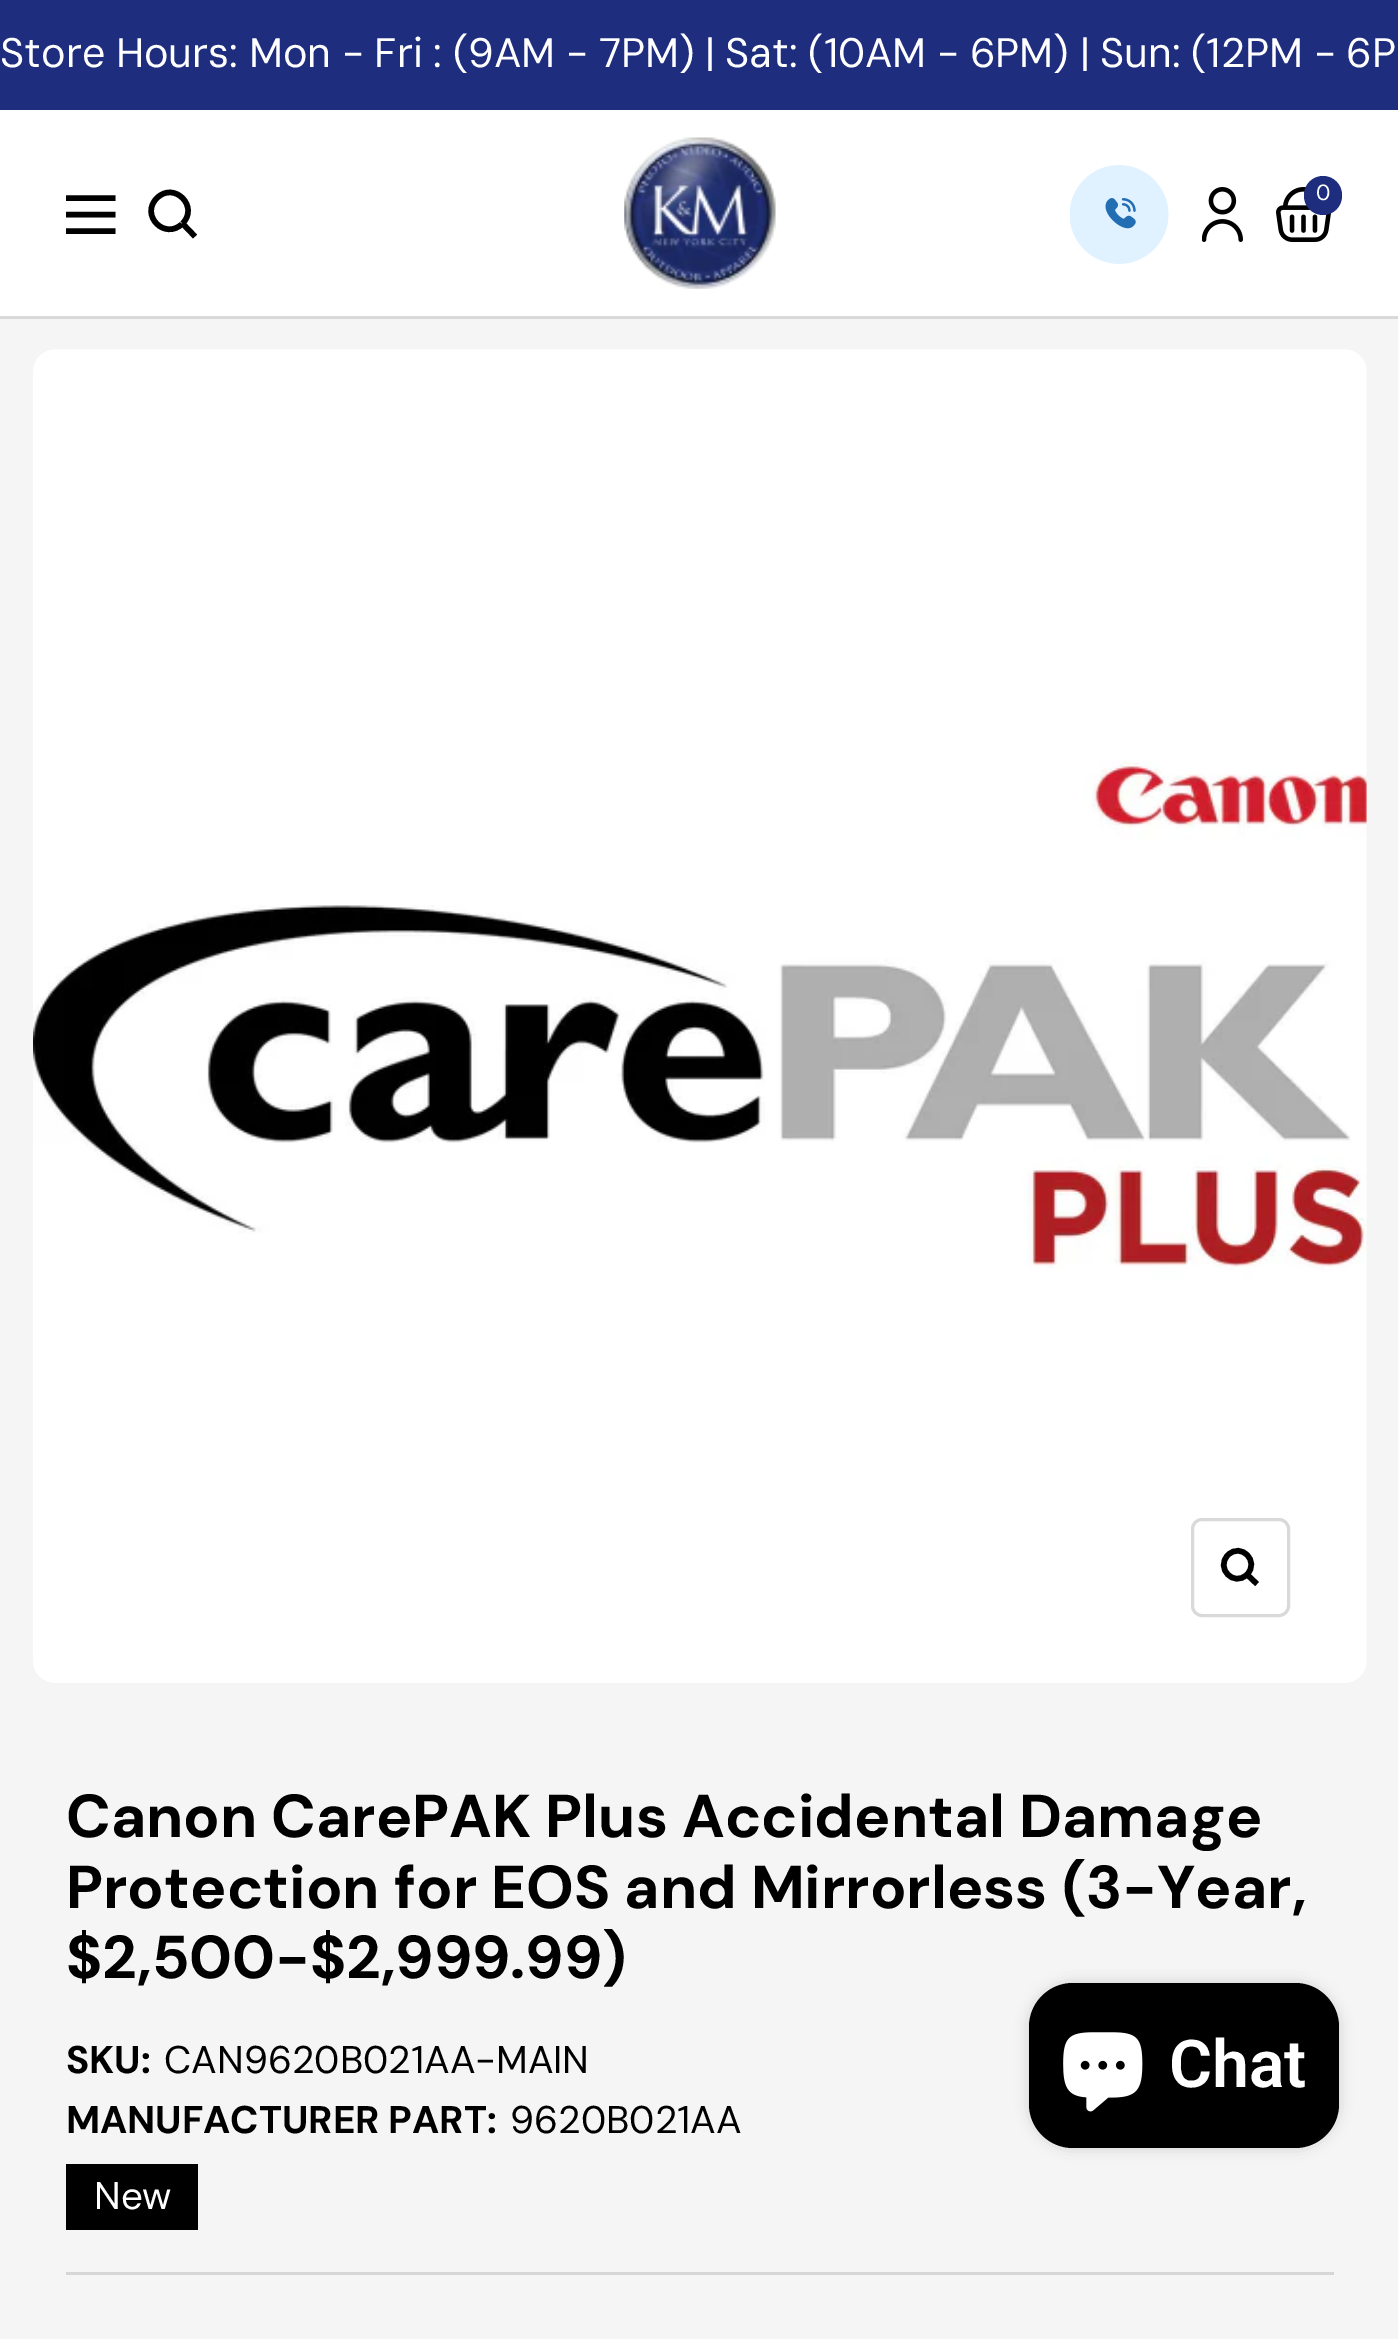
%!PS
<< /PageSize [1398 2339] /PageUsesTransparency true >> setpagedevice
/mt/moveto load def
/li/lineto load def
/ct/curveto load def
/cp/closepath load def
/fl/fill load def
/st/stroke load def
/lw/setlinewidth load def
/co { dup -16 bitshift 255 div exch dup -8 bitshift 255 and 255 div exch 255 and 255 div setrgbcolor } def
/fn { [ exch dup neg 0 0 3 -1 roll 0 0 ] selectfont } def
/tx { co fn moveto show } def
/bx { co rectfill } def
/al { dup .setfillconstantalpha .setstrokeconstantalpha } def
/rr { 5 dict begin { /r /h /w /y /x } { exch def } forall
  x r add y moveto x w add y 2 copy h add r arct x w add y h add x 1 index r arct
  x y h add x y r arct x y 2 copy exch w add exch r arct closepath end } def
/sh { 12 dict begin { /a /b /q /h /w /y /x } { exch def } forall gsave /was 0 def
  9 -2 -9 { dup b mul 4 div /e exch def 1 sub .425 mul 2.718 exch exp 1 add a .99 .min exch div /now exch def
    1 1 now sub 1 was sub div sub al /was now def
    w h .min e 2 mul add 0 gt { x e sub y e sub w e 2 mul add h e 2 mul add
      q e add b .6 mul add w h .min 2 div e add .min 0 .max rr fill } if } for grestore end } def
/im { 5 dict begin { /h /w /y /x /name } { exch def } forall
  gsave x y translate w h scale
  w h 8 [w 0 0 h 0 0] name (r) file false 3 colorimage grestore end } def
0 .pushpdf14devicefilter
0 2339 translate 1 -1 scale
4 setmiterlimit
0 0 1398 2339 16#F5F5F5 bx
0 0 1398 110 16#1E2D7D bx
16#D9D9D9 co
0 316 mt 0 319 li 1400 319 li 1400 113 li 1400 316 li cp fl
0 110 1398 206 16#FFFFFF bx
16#000000 co
5.5 lw
66 198 mt 115.5 198 li 66 231 mt 115.5 231 li cp 66 214.5 mt 115.5 214.5 li cp st
182.5 223.5 mt 199.5 206.5 174 181 157 198 ct 139.5 215 165 241 182.5 223.5 ct cp 182.5 223.5 mt 195 236.5 li st
(media/1.raw) 624 137 152 152 im
(media/2.raw) 1070 165 99 99 im
(media/3.raw) 1202 187 41 55 im
(media/4.raw) 1276 187 56 55 im
16#1E2D7D co
1304 176 38 39 19 rr fl
(media/5.raw) 33 349 1334 1334 im
16#D9D9D9 co
3 lw
1192.5 1519.5 96 96 9.5 rr st
16#000000 co
5.5 lw
1247 1574.5 mt 1260 1561.5 1241 1542 1228 1555 ct 1215 1568 1234 1587.5 1247 1574.5 ct cp 1247 1574.5 mt 1257 1584 li st
66 2272 1268 3 16#D6D6D6 bx
66 2164 132 66 16#000000 bx
1029 1983 310 165 44 7 .15 sh
1029 1983 310 165 44 rr fl
(media/6.raw) 1063 2032 80 80 im
/DMSans-Regular 41.25 fn
16#FFFFFF co
0 67 mt -.5 0 32 (Store Hours: Mon - Fri : \(9AM - 7PM\) | Sat: \(10AM - 6PM\) | Sun: \(12PM - 6P) widthshow
(0) 1316 200 /DMSans-Regular 22 16#FFFFFF tx
(Canon CarePAK Plus Accidental Damage) 66 1837 /DMSans-Bold 60.5 16#000000 tx
(Protection for EOS and Mirrorless \(3-Year,) 66 1908 /DMSans-Bold 60.5 16#000000 tx
($2,500-$2,999.99\)) 66 1978 /DMSans-Bold 60.5 16#000000 tx
(SKU:) 66 2073 /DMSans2-Bold 38.5 16#000000 tx
(CAN9620B021AA-MAIN) 164 2073 /DMSans-Regular 38.5 16#000000 tx
(MANUFACTURER PART:) 66 2133 /DMSans2-Bold 38.5 16#000000 tx
(9620B021AA) 510 2133 /DMSans-Regular 38.5 16#000000 tx
(New) 94 2209 /DMSans2-Regular 38.5 16#FFFFFF tx
(Chat) 1169 2087 /Roboto-SemiBold 66 16#FFFFFF tx
.poppdf14devicefilter showpage
